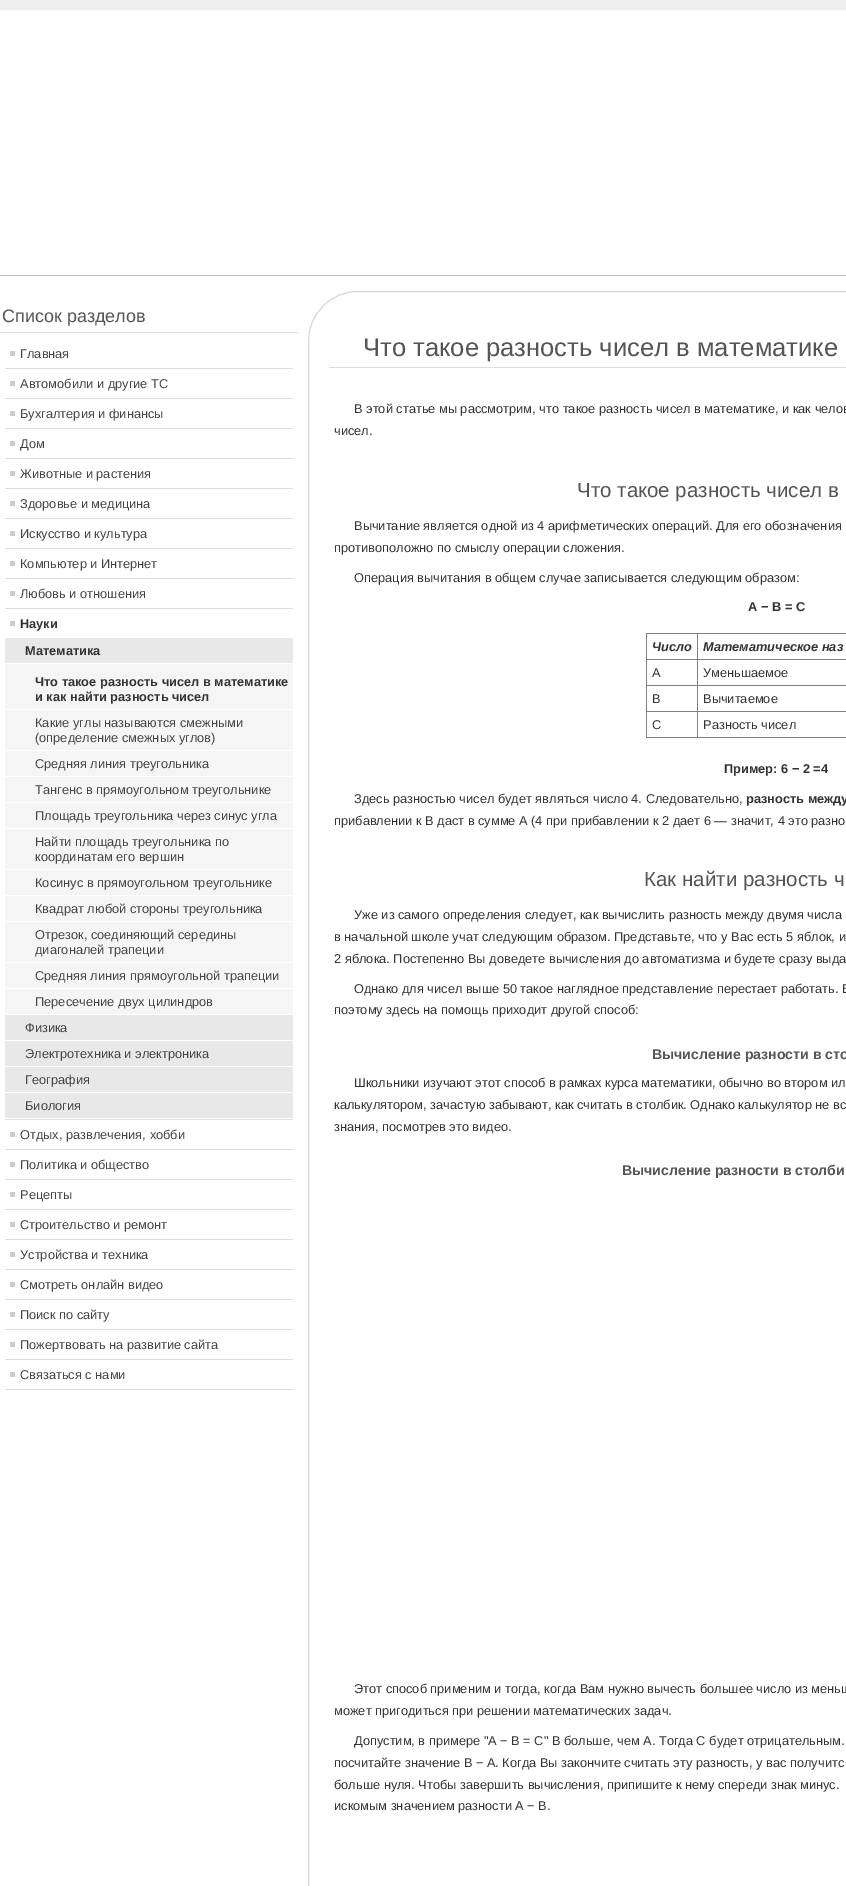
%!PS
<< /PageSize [846 1886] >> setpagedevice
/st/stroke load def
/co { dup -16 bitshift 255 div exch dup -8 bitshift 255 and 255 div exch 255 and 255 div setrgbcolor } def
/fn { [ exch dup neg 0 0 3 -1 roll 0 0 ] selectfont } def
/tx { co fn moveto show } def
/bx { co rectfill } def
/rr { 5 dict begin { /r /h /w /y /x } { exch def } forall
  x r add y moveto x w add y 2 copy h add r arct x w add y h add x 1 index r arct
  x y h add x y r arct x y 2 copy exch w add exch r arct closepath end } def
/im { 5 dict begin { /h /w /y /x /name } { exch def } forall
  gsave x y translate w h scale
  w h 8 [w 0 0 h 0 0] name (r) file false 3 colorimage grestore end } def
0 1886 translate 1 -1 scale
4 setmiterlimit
0 0 846 1886 16#FFFFFF bx
(media/1.raw) 0 0 846 10 im
0 275 846 1 16#C0C0C0 bx
0 332 298 1 16#DDDDDD bx
5 368 288 1 16#DDDDDD bx
10 351 5 5 16#CCCCCC bx
5 398 288 1 16#DDDDDD bx
10 381 5 5 16#CCCCCC bx
5 428 288 1 16#DDDDDD bx
10 411 5 5 16#CCCCCC bx
5 458 288 1 16#DDDDDD bx
10 441 5 5 16#CCCCCC bx
5 488 288 1 16#DDDDDD bx
10 471 5 5 16#CCCCCC bx
5 518 288 1 16#DDDDDD bx
10 501 5 5 16#CCCCCC bx
5 548 288 1 16#DDDDDD bx
10 531 5 5 16#CCCCCC bx
5 578 288 1 16#DDDDDD bx
10 561 5 5 16#CCCCCC bx
5 608 288 1 16#DDDDDD bx
10 591 5 5 16#CCCCCC bx
5 1119 288 1 16#DDDDDD bx
10 621 5 5 16#CCCCCC bx
5 638 288 25 16#E8E8E8 bx
5 664 288 45 16#F5F5F5 bx
5 710 288 40 16#F5F5F5 bx
5 751 288 25 16#F5F5F5 bx
5 777 288 25 16#F5F5F5 bx
5 803 288 25 16#F5F5F5 bx
5 829 288 40 16#F5F5F5 bx
5 870 288 25 16#F5F5F5 bx
5 896 288 25 16#F5F5F5 bx
5 922 288 40 16#F5F5F5 bx
5 963 288 25 16#F5F5F5 bx
5 989 288 25 16#F5F5F5 bx
5 1015 288 25 16#E8E8E8 bx
5 1041 288 25 16#E8E8E8 bx
5 1067 288 25 16#E8E8E8 bx
5 1093 288 25 16#E8E8E8 bx
5 1149 288 1 16#DDDDDD bx
10 1132 5 5 16#CCCCCC bx
5 1179 288 1 16#DDDDDD bx
10 1162 5 5 16#CCCCCC bx
5 1209 288 1 16#DDDDDD bx
10 1192 5 5 16#CCCCCC bx
5 1239 288 1 16#DDDDDD bx
10 1222 5 5 16#CCCCCC bx
5 1269 288 1 16#DDDDDD bx
10 1252 5 5 16#CCCCCC bx
5 1299 288 1 16#DDDDDD bx
10 1282 5 5 16#CCCCCC bx
5 1329 288 1 16#DDDDDD bx
10 1312 5 5 16#CCCCCC bx
5 1359 288 1 16#DDDDDD bx
10 1342 5 5 16#CCCCCC bx
5 1389 288 1 16#DDDDDD bx
10 1372 5 5 16#CCCCCC bx
16#D8D8D8 co
308.5 291.5 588 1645 49.5 rr st
329 367 517 1 16#DDDDDD bx
697 633 149 1 16#808080 bx
697 659 149 1 16#808080 bx
697 685 149 1 16#808080 bx
697 711 149 1 16#808080 bx
697 737 149 1 16#808080 bx
697 711 1 27 16#808080 bx
646 711 52 1 16#808080 bx
697 685 1 27 16#808080 bx
646 685 52 1 16#808080 bx
697 659 1 27 16#808080 bx
646 659 52 1 16#808080 bx
697 633 1 27 16#808080 bx
646 633 52 1 16#808080 bx
646 737 52 1 16#808080 bx
646 711 1 27 16#808080 bx
646 685 1 27 16#808080 bx
646 659 1 27 16#808080 bx
646 633 1 27 16#808080 bx
(Список разделов) 2 322 /LiberationSans-Regular 18 16#555555 tx
(Главная) 20 358 /LiberationSans-Regular 12.8 16#444444 tx
(Автомобили и другие ТС) 20 388 /LiberationSans-Regular 12.8 16#444444 tx
(Бухгалтерия и финансы) 20 418 /LiberationSans-Regular 12.8 16#444444 tx
(Дом) 20 448 /LiberationSans-Regular 12.8 16#444444 tx
(Животные и растения) 20 478 /LiberationSans-Regular 12.8 16#444444 tx
(Здоровье и медицина) 20 508 /LiberationSans-Regular 12.8 16#444444 tx
(Искусство и культура) 20 538 /LiberationSans-Regular 12.8 16#444444 tx
(Компьютер и Интернет) 20 568 /LiberationSans-Regular 12.8 16#444444 tx
(Любовь и отношения) 20 598 /LiberationSans-Regular 12.8 16#444444 tx
(Науки) 20 628 /LiberationSans-Bold 12.8 16#333333 tx
(Математика) 25 655 /LiberationSans-Bold 12.8 16#333333 tx
(Что такое разность чисел в математике) 35 686 /LiberationSans-Bold 12.8 16#333333 tx
(и как найти разность чисел) 35 701 /LiberationSans-Bold 12.8 16#333333 tx
(Какие углы называются смежными) 35 727 /LiberationSans-Regular 12.8 16#444444 tx
(\(определение смежных углов\)) 35 742 /LiberationSans-Regular 12.8 16#444444 tx
(Средняя линия треугольника) 35 768 /LiberationSans-Regular 12.8 16#444444 tx
(Тангенс в прямоугольном треугольнике) 35 794 /LiberationSans-Regular 12.8 16#444444 tx
(Площадь треугольника через синус угла) 35 820 /LiberationSans-Regular 12.8 16#444444 tx
(Найти площадь треугольника по) 35 846 /LiberationSans-Regular 12.8 16#444444 tx
(координатам его вершин) 35 861 /LiberationSans-Regular 12.8 16#444444 tx
(Косинус в прямоугольном треугольнике) 35 887 /LiberationSans-Regular 12.8 16#444444 tx
(Квадрат любой стороны треугольника) 35 913 /LiberationSans-Regular 12.8 16#444444 tx
(Отрезок, соединяющий середины) 35 939 /LiberationSans-Regular 12.8 16#444444 tx
(диагоналей трапеции) 35 954 /LiberationSans-Regular 12.8 16#444444 tx
(Средняя линия прямоугольной трапеции) 35 980 /LiberationSans-Regular 12.8 16#444444 tx
(Пересечение двух цилиндров) 35 1006 /LiberationSans-Regular 12.8 16#444444 tx
(Физика) 25 1032 /LiberationSans-Regular 12.8 16#444444 tx
(Электротехника и электроника) 25 1058 /LiberationSans-Regular 12.8 16#444444 tx
(География) 25 1084 /LiberationSans-Regular 12.8 16#444444 tx
(Биология) 25 1110 /LiberationSans-Regular 12.8 16#444444 tx
(Отдых, развлечения, хобби) 20 1139 /LiberationSans-Regular 12.8 16#444444 tx
(Политика и общество) 20 1169 /LiberationSans-Regular 12.8 16#444444 tx
(Рецепты) 20 1199 /LiberationSans-Regular 12.8 16#444444 tx
(Строительство и ремонт) 20 1229 /LiberationSans-Regular 12.8 16#444444 tx
(Устройства и техника) 20 1259 /LiberationSans-Regular 12.8 16#444444 tx
(Смотреть онлайн видео) 20 1289 /LiberationSans-Regular 12.8 16#444444 tx
(Поиск по сайту) 20 1319 /LiberationSans-Regular 12.8 16#444444 tx
(Пожертвовать на развитие сайта) 20 1349 /LiberationSans-Regular 12.8 16#444444 tx
(Связаться с нами) 20 1379 /LiberationSans-Regular 12.8 16#444444 tx
(Что такое разность чисел в математике) 363 356 /LiberationSans-Regular 25.6 16#555555 tx
(В этой статье мы рассмотрим, что такое разность чисел в математике, и как челов) 354 413 /LiberationSans-Regular 12.8 16#333333 tx
(чисел.) 334 435 /LiberationSans-Regular 12.8 16#333333 tx
(Что такое разность чисел в) 577 497 /LiberationSans-Regular 20.5 16#555555 tx
(Вычитание является одной из 4 арифметических операций. Для его обозначения) 354 530 /LiberationSans-Regular 12.8 16#333333 tx
(противоположно по смыслу операции сложения.) 334 552 /LiberationSans-Regular 12.8 16#333333 tx
(Операция вычитания в общем случае записывается следующим образом:) 354 582 /LiberationSans-Regular 12.8 16#333333 tx
(A − B = C) 748 611 /LiberationSans-Bold 12.8 16#333333 tx
(Число) 652 651 /LiberationSans-BoldItalic 12.8 16#333333 tx
(Математическое наз) 703 651 /LiberationSans-BoldItalic 12.8 16#333333 tx
(A) 652 677 /LiberationSans-Regular 12.8 16#333333 tx
(Уменьшаемое) 703 677 /LiberationSans-Regular 12.8 16#333333 tx
(B) 652 703 /LiberationSans-Regular 12.8 16#333333 tx
(Вычитаемое) 703 703 /LiberationSans-Regular 12.8 16#333333 tx
(C) 652 729 /LiberationSans-Regular 12.8 16#333333 tx
(Разность чисел) 703 729 /LiberationSans-Regular 12.8 16#333333 tx
(Пример: 6 − 2 =4) 724 773 /LiberationSans-Bold 12.8 16#333333 tx
(Здесь разностью чисел будет являться число 4. Следовательно,) 354 803 /LiberationSans-Regular 12.8 16#333333 tx
(разность между) 746 803 /LiberationSans-Bold 12.8 16#333333 tx
(прибавлении к B даст в сумме A \(4 при прибавлении к 2 дает 6 — значит, 4 это разно) 334 825 /LiberationSans-Regular 12.8 16#333333 tx
(Как найти разность ч) 644 886 /LiberationSans-Regular 20.5 16#555555 tx
(Уже из самого определения следует, как вычислить разность между двумя числа) 354 919 /LiberationSans-Regular 12.8 16#333333 tx
(в начальной школе учат следующим образом. Представьте, что у Вас есть 5 яблок, и) 334 941 /LiberationSans-Regular 12.8 16#333333 tx
(2 яблока. Постепенно Вы доведете вычисления до автоматизма и будете сразу выда) 334 963 /LiberationSans-Regular 12.8 16#333333 tx
(Однако для чисел выше 50 такое наглядное представление перестает работать. Б) 354 993 /LiberationSans-Regular 12.8 16#333333 tx
(поэтому здесь на помощь приходит другой способ:) 334 1014 /LiberationSans-Regular 12.8 16#333333 tx
(Вычисление разности в сто) 652 1059 /LiberationSans-Bold 14.1 16#555555 tx
(Школьники изучают этот способ в рамках курса математики, обычно во втором ил) 354 1087 /LiberationSans-Regular 12.8 16#333333 tx
(калькулятором, зачастую забывают, как считать в столбик. Однако калькулятор не вс) 334 1109 /LiberationSans-Regular 12.8 16#333333 tx
(знания, посмотрев это видео.) 334 1131 /LiberationSans-Regular 12.8 16#333333 tx
(Вычисление разности в столби) 622 1175 /LiberationSans-Bold 14.1 16#555555 tx
(Этот способ применим и тогда, когда Вам нужно вычесть большее число из меньш) 354 1693 /LiberationSans-Regular 12.8 16#333333 tx
(может пригодиться при решении математических задач.) 334 1715 /LiberationSans-Regular 12.8 16#333333 tx
(Допустим, в примере "A − B = C" B больше, чем A. Тогда C будет отрицательным.) 354 1745 /LiberationSans-Regular 12.8 16#333333 tx
(посчитайте значение B − A. Когда Вы закончите считать эту разность, у вас получитс) 334 1767 /LiberationSans-Regular 12.8 16#333333 tx
(больше нуля. Чтобы завершить вычисления, припишите к нему спереди знак минус.) 334 1789 /LiberationSans-Regular 12.8 16#333333 tx
(искомым значением разности A − B.) 334 1810 /LiberationSans-Regular 12.8 16#333333 tx
showpage
